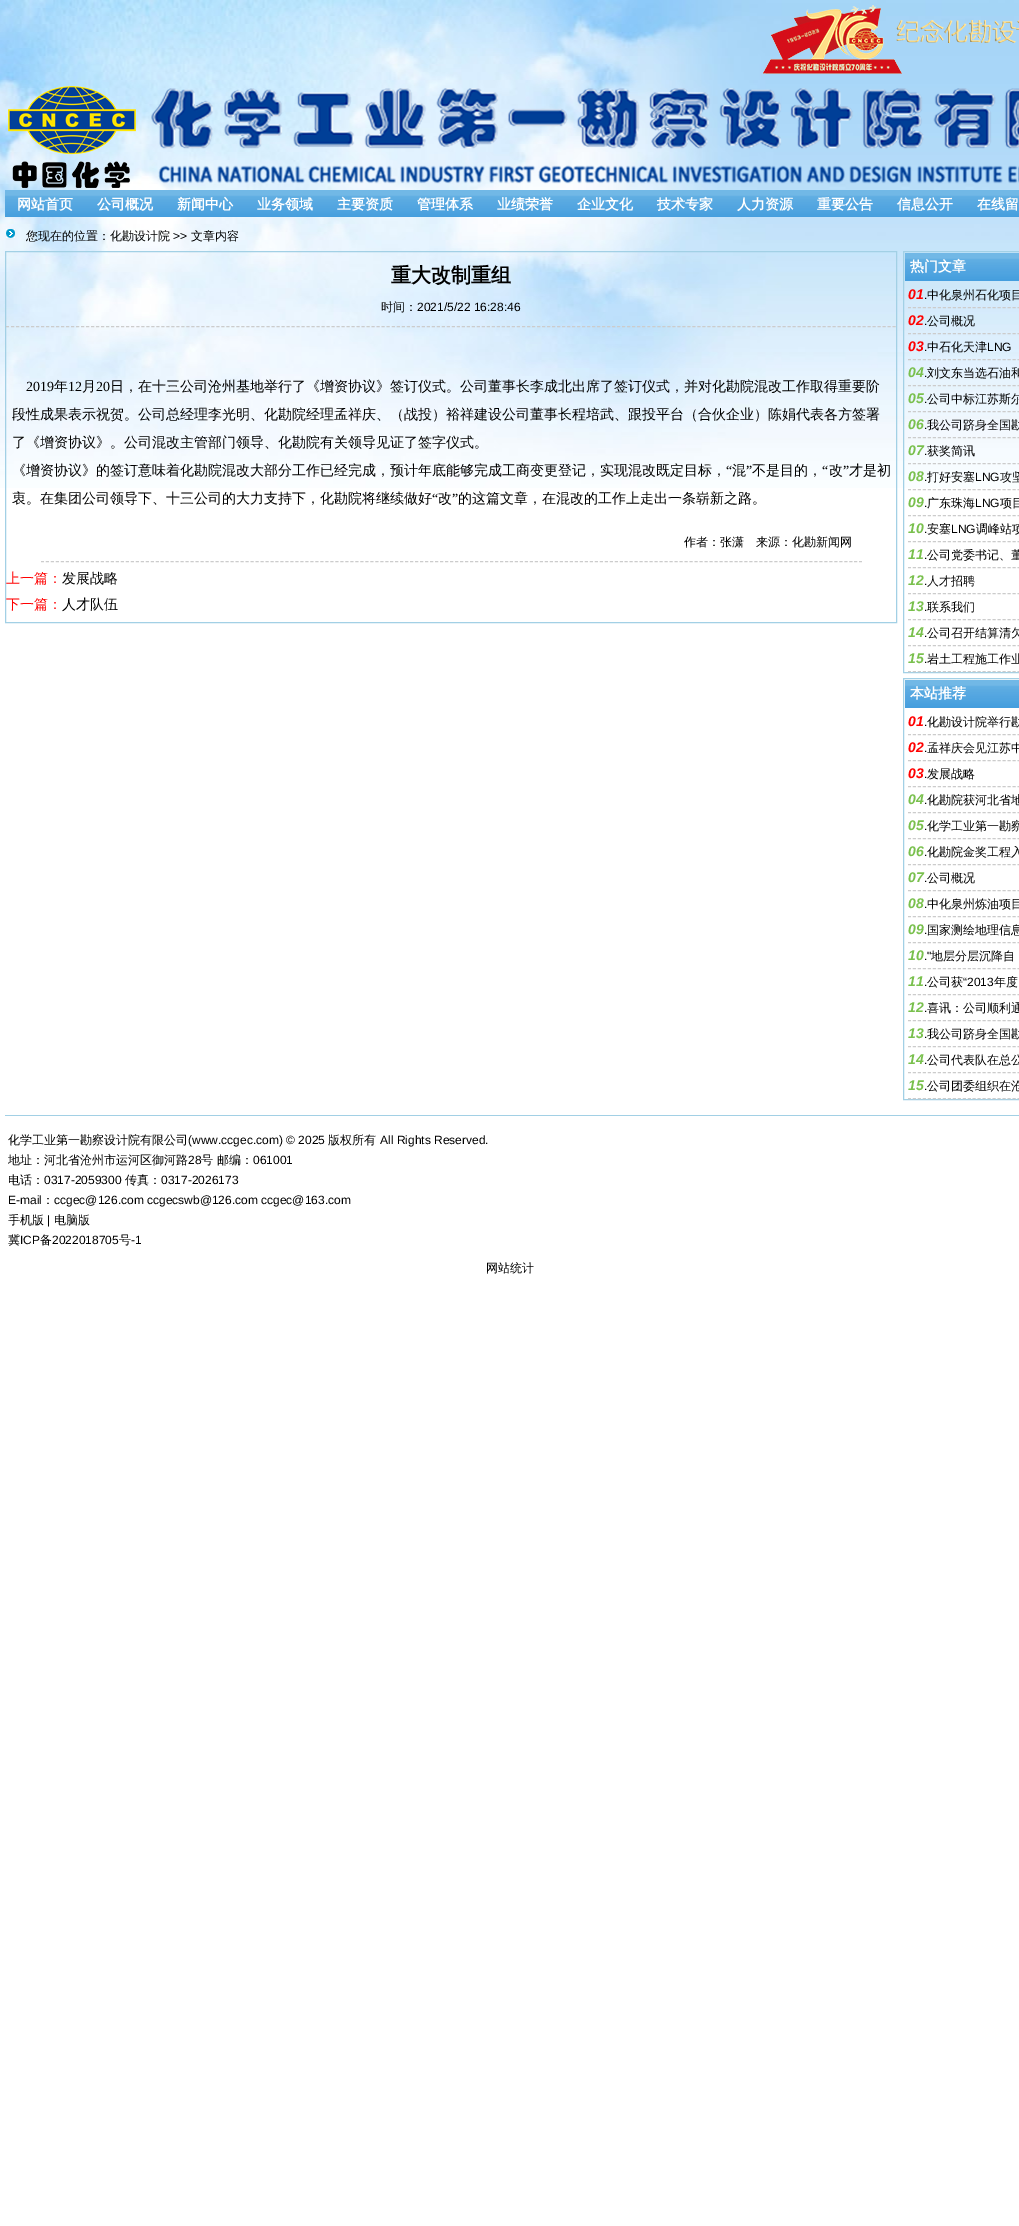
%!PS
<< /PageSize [1019 2226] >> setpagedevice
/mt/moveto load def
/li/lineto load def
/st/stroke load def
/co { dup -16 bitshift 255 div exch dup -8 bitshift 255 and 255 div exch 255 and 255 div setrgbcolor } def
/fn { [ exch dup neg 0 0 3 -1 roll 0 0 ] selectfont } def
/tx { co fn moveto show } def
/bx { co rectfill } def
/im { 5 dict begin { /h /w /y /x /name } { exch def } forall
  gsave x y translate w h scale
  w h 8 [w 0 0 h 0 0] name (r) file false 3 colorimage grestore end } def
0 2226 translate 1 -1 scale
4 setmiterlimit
0 0 1019 2226 16#FFFFFF bx
(media/1.raw) 0 0 1019 488 im
(media/2.raw) 763 5 256 69 im
(media/3.raw) 8 86 1011 102 im
(media/4.raw) 5 190 1014 27 im
(media/5.raw) 6 229 9 9 im
16#A2D0E5 co
5.5 251.5 891 371 rectstroke
16#CCCCCC co
[3 2.01] 0 setdash
6 326.5 mt 896 326.5 li st
[3 1.99] 0 setdash
41 561.5 mt 862 561.5 li st
16#A2D0E5 co
[] 0 setdash
903.5 251.5 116 421 rectstroke
(media/6.raw) 905 253 114 28 im
16#CCCCCC co
[3 1.98] 0 setdash
908 307.5 mt 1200 307.5 li st
908 333.5 mt 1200 333.5 li st
908 359.5 mt 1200 359.5 li st
908 385.5 mt 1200 385.5 li st
908 411.5 mt 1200 411.5 li st
908 437.5 mt 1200 437.5 li st
908 463.5 mt 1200 463.5 li st
908 489.5 mt 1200 489.5 li st
908 515.5 mt 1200 515.5 li st
908 541.5 mt 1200 541.5 li st
908 567.5 mt 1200 567.5 li st
908 593.5 mt 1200 593.5 li st
908 619.5 mt 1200 619.5 li st
908 645.5 mt 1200 645.5 li st
908 671.5 mt 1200 671.5 li st
16#A2D0E5 co
[] 0 setdash
903.5 678.5 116 421 rectstroke
(media/6.raw) 905 680 114 28 im
16#CCCCCC co
[3 1.98] 0 setdash
908 734.5 mt 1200 734.5 li st
908 760.5 mt 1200 760.5 li st
908 786.5 mt 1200 786.5 li st
908 812.5 mt 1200 812.5 li st
908 838.5 mt 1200 838.5 li st
908 864.5 mt 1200 864.5 li st
908 890.5 mt 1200 890.5 li st
908 916.5 mt 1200 916.5 li st
908 942.5 mt 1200 942.5 li st
908 968.5 mt 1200 968.5 li st
908 994.5 mt 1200 994.5 li st
908 1020.5 mt 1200 1020.5 li st
908 1046.5 mt 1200 1046.5 li st
908 1072.5 mt 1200 1072.5 li st
908 1098.5 mt 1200 1098.5 li st
5 1115 1014 1 16#A2D0E5 bx
(网站首页) 17 209 /WenQuanYiZenHei-Bold 14 16#FFFFFF tx
(公司概况) 97 209 /WenQuanYiZenHei-Bold 14 16#FFFFFF tx
(新闻中心) 177 209 /WenQuanYiZenHei-Bold 14 16#FFFFFF tx
(业务领域) 257 209 /WenQuanYiZenHei-Bold 14 16#FFFFFF tx
(主要资质) 337 209 /WenQuanYiZenHei-Bold 14 16#FFFFFF tx
(管理体系) 417 209 /WenQuanYiZenHei-Bold 14 16#FFFFFF tx
(业绩荣誉) 497 209 /WenQuanYiZenHei-Bold 14 16#FFFFFF tx
(企业文化) 577 209 /WenQuanYiZenHei-Bold 14 16#FFFFFF tx
(技术专家) 657 209 /WenQuanYiZenHei-Bold 14 16#FFFFFF tx
(人力资源) 737 209 /WenQuanYiZenHei-Bold 14 16#FFFFFF tx
(重要公告) 817 209 /WenQuanYiZenHei-Bold 14 16#FFFFFF tx
(信息公开) 897 209 /WenQuanYiZenHei-Bold 14 16#FFFFFF tx
(在线留) 977 209 /WenQuanYiZenHei-Bold 14 16#FFFFFF tx
(您现在的位置：化勘设计院) 26 240 /WenQuanYiZenHei-Medium 12 16#000000 tx
(>>) 173 240 /LiberationSans-Regular 12 16#000000 tx
(文章内容) 191 240 /WenQuanYiZenHei-Medium 12 16#000000 tx
(重大改制重组) 391 282 /WenQuanYiZenHei-Bold 20 16#000000 tx
(时间：) 381 311 /WenQuanYiZenHei-Medium 12 16#000000 tx
(2021/5/22 16:28:46) 417 311 /LiberationSans-Regular 12 16#000000 tx
(2019) 26 391 /LiberationSerif-Regular 14 16#000000 tx
(年) 54 391 /WenQuanYiZenHei-Medium 14 16#000000 tx
(12) 68 391 /LiberationSerif-Regular 14 16#000000 tx
(月) 82 391 /WenQuanYiZenHei-Medium 14 16#000000 tx
(20) 96 391 /LiberationSerif-Regular 14 16#000000 tx
(日，在十三公司沧州基地举行了《增资协议》签订仪式。公司董事长李成北出席了签订仪式，并对化勘院混改工作取得重要阶) 110 391 /WenQuanYiZenHei-Medium 14 16#000000 tx
(段性成果表示祝贺。公司总经理李光明、化勘院经理孟祥庆、（战投）裕祥建设公司董事长程培武、跟投平台（合伙企业）陈娟代表各方签署) 12 419 /WenQuanYiZenHei-Medium 14 16#000000 tx
(了《增资协议》。公司混改主管部门领导、化勘院有关领导见证了签字仪式。) 12 447 /WenQuanYiZenHei-Medium 14 16#000000 tx
(《增资协议》的签订意味着化勘院混改大部分工作已经完成，预计年底能够完成工商变更登记，实现混改既定目标，) 12 475 /WenQuanYiZenHei-Medium 14 16#000000 tx
(“) 726 475 /LiberationSerif-Regular 14 16#000000 tx
(混) 732 475 /WenQuanYiZenHei-Medium 14 16#000000 tx
(”) 746 475 /LiberationSerif-Regular 14 16#000000 tx
(不是目的，) 752 475 /WenQuanYiZenHei-Medium 14 16#000000 tx
(“) 822 475 /LiberationSerif-Regular 14 16#000000 tx
(改) 829 475 /WenQuanYiZenHei-Medium 14 16#000000 tx
(”) 843 475 /LiberationSerif-Regular 14 16#000000 tx
(才是初) 849 475 /WenQuanYiZenHei-Medium 14 16#000000 tx
(衷。在集团公司领导下、十三公司的大力支持下，化勘院将继续做好) 12 503 /WenQuanYiZenHei-Medium 14 16#000000 tx
(“) 432 503 /LiberationSerif-Regular 14 16#000000 tx
(改) 438 503 /WenQuanYiZenHei-Medium 14 16#000000 tx
(”) 452 503 /LiberationSerif-Regular 14 16#000000 tx
(的这篇文章，在混改的工作上走出一条崭新之路。) 458 503 /WenQuanYiZenHei-Medium 14 16#000000 tx
(作者：张潇　来源：化勘新闻网) 684 546 /WenQuanYiZenHei-Medium 12 16#000000 tx
(上一篇：) 6 583 /WenQuanYiZenHei-Medium 14 16#FF0000 tx
(发展战略) 62 583 /WenQuanYiZenHei-Medium 14 16#000000 tx
(下一篇：) 6 609 /WenQuanYiZenHei-Medium 14 16#FF0000 tx
(人才队伍) 62 609 /WenQuanYiZenHei-Medium 14 16#000000 tx
(热门文章) 910 271 /WenQuanYiZenHei-Bold 14 16#FFFFFF tx
(01) 908 299 /LiberationSans-BoldItalic 14 16#FF0000 tx
(.) 924 299 /LiberationSans-Regular 12 16#000000 tx
(中化泉州石化项目) 927 299 /WenQuanYiZenHei-Medium 12 16#000000 tx
(02) 908 325 /LiberationSans-BoldItalic 14 16#FF0000 tx
(.) 924 325 /LiberationSans-Regular 12 16#000000 tx
(公司概况) 927 325 /WenQuanYiZenHei-Medium 12 16#000000 tx
(03) 908 351 /LiberationSans-BoldItalic 14 16#FF0000 tx
(.) 924 351 /LiberationSans-Regular 12 16#000000 tx
(中石化天津) 927 351 /WenQuanYiZenHei-Medium 12 16#000000 tx
(LNG) 987 351 /LiberationSans-Regular 12 16#000000 tx
(04) 908 377 /LiberationSans-BoldItalic 14 16#79C04D tx
(.) 924 377 /LiberationSans-Regular 12 16#000000 tx
(刘文东当选石油和) 927 377 /WenQuanYiZenHei-Medium 12 16#000000 tx
(05) 908 403 /LiberationSans-BoldItalic 14 16#79C04D tx
(.) 924 403 /LiberationSans-Regular 12 16#000000 tx
(公司中标江苏斯尔) 927 403 /WenQuanYiZenHei-Medium 12 16#000000 tx
(06) 908 429 /LiberationSans-BoldItalic 14 16#79C04D tx
(.) 924 429 /LiberationSans-Regular 12 16#000000 tx
(我公司跻身全国勘) 927 429 /WenQuanYiZenHei-Medium 12 16#000000 tx
(07) 908 455 /LiberationSans-BoldItalic 14 16#79C04D tx
(获奖简讯) 927 455 /WenQuanYiZenHei-Medium 12 16#000000 tx
(.) 924 455 /LiberationSans-Regular 12 16#000000 tx
(08) 908 481 /LiberationSans-BoldItalic 14 16#79C04D tx
(.) 924 481 /LiberationSans-Regular 12 16#000000 tx
(打好安塞) 927 481 /WenQuanYiZenHei-Medium 12 16#000000 tx
(LNG) 975 481 /LiberationSans-Regular 12 16#000000 tx
(攻坚) 1000 481 /WenQuanYiZenHei-Medium 12 16#000000 tx
(09) 908 507 /LiberationSans-BoldItalic 14 16#79C04D tx
(.) 924 507 /LiberationSans-Regular 12 16#000000 tx
(广东珠海) 927 507 /WenQuanYiZenHei-Medium 12 16#000000 tx
(LNG) 975 507 /LiberationSans-Regular 12 16#000000 tx
(项目) 1000 507 /WenQuanYiZenHei-Medium 12 16#000000 tx
(10) 908 533 /LiberationSans-BoldItalic 14 16#79C04D tx
(.) 924 533 /LiberationSans-Regular 12 16#000000 tx
(安塞) 927 533 /WenQuanYiZenHei-Medium 12 16#000000 tx
(LNG) 951 533 /LiberationSans-Regular 12 16#000000 tx
(调峰站项) 976 533 /WenQuanYiZenHei-Medium 12 16#000000 tx
(11) 908 559 /LiberationSans-BoldItalic 14 16#79C04D tx
(.) 924 559 /LiberationSans-Regular 12 16#000000 tx
(公司党委书记、董) 927 559 /WenQuanYiZenHei-Medium 12 16#000000 tx
(12) 908 585 /LiberationSans-BoldItalic 14 16#79C04D tx
(.) 924 585 /LiberationSans-Regular 12 16#000000 tx
(人才招聘) 927 585 /WenQuanYiZenHei-Medium 12 16#000000 tx
(13) 908 611 /LiberationSans-BoldItalic 14 16#79C04D tx
(.) 924 611 /LiberationSans-Regular 12 16#000000 tx
(联系我们) 927 611 /WenQuanYiZenHei-Medium 12 16#000000 tx
(14) 908 637 /LiberationSans-BoldItalic 14 16#79C04D tx
(.) 924 637 /LiberationSans-Regular 12 16#000000 tx
(公司召开结算清欠) 927 637 /WenQuanYiZenHei-Medium 12 16#000000 tx
(15) 908 663 /LiberationSans-BoldItalic 14 16#79C04D tx
(.) 924 663 /LiberationSans-Regular 12 16#000000 tx
(岩土工程施工作业) 927 663 /WenQuanYiZenHei-Medium 12 16#000000 tx
(本站推荐) 910 698 /WenQuanYiZenHei-Bold 14 16#FFFFFF tx
(01) 908 726 /LiberationSans-BoldItalic 14 16#FF0000 tx
(.) 924 726 /LiberationSans-Regular 12 16#000000 tx
(化勘设计院举行勘) 927 726 /WenQuanYiZenHei-Medium 12 16#000000 tx
(02) 908 752 /LiberationSans-BoldItalic 14 16#FF0000 tx
(.) 924 752 /LiberationSans-Regular 12 16#000000 tx
(孟祥庆会见江苏中) 927 752 /WenQuanYiZenHei-Medium 12 16#000000 tx
(03) 908 778 /LiberationSans-BoldItalic 14 16#FF0000 tx
(.) 924 778 /LiberationSans-Regular 12 16#000000 tx
(发展战略) 927 778 /WenQuanYiZenHei-Medium 12 16#000000 tx
(04) 908 804 /LiberationSans-BoldItalic 14 16#79C04D tx
(.) 924 804 /LiberationSans-Regular 12 16#000000 tx
(化勘院获河北省地) 927 804 /WenQuanYiZenHei-Medium 12 16#000000 tx
(05) 908 830 /LiberationSans-BoldItalic 14 16#79C04D tx
(.) 924 830 /LiberationSans-Regular 12 16#000000 tx
(化学工业第一勘察) 927 830 /WenQuanYiZenHei-Medium 12 16#000000 tx
(06) 908 856 /LiberationSans-BoldItalic 14 16#79C04D tx
(.) 924 856 /LiberationSans-Regular 12 16#000000 tx
(化勘院金奖工程入) 927 856 /WenQuanYiZenHei-Medium 12 16#000000 tx
(07) 908 882 /LiberationSans-BoldItalic 14 16#79C04D tx
(公司概况) 927 882 /WenQuanYiZenHei-Medium 12 16#000000 tx
(.) 924 882 /LiberationSans-Regular 12 16#000000 tx
(08) 908 908 /LiberationSans-BoldItalic 14 16#79C04D tx
(.) 924 908 /LiberationSans-Regular 12 16#000000 tx
(中化泉州炼油项目) 927 908 /WenQuanYiZenHei-Medium 12 16#000000 tx
(09) 908 934 /LiberationSans-BoldItalic 14 16#79C04D tx
(.) 924 934 /LiberationSans-Regular 12 16#000000 tx
(国家测绘地理信息) 927 934 /WenQuanYiZenHei-Medium 12 16#000000 tx
(10) 908 960 /LiberationSans-BoldItalic 14 16#79C04D tx
(.") 924 960 /LiberationSans-Regular 12 16#000000 tx
(地层分层沉降自) 931 960 /WenQuanYiZenHei-Medium 12 16#000000 tx
(11) 908 986 /LiberationSans-BoldItalic 14 16#79C04D tx
(.) 924 986 /LiberationSans-Regular 12 16#000000 tx
(公司获) 927 986 /WenQuanYiZenHei-Medium 12 16#000000 tx
(“2013) 963 986 /LiberationSans-Regular 12 16#000000 tx
(年度) 994 986 /WenQuanYiZenHei-Medium 12 16#000000 tx
(12) 908 1012 /LiberationSans-BoldItalic 14 16#79C04D tx
(.) 924 1012 /LiberationSans-Regular 12 16#000000 tx
(喜讯：公司顺利通) 927 1012 /WenQuanYiZenHei-Medium 12 16#000000 tx
(13) 908 1038 /LiberationSans-BoldItalic 14 16#79C04D tx
(.) 924 1038 /LiberationSans-Regular 12 16#000000 tx
(我公司跻身全国勘) 927 1038 /WenQuanYiZenHei-Medium 12 16#000000 tx
(14) 908 1064 /LiberationSans-BoldItalic 14 16#79C04D tx
(.) 924 1064 /LiberationSans-Regular 12 16#000000 tx
(公司代表队在总公) 927 1064 /WenQuanYiZenHei-Medium 12 16#000000 tx
(15) 908 1090 /LiberationSans-BoldItalic 14 16#79C04D tx
(.) 924 1090 /LiberationSans-Regular 12 16#000000 tx
(公司团委组织在沧) 927 1090 /WenQuanYiZenHei-Medium 12 16#000000 tx
(化学工业第一勘察设计院有限公司) 8 1144 /WenQuanYiZenHei-Medium 12 16#000000 tx
(\(www.ccgec.com\) © 2025) 188 1144 /LiberationSans-Regular 12 16#000000 tx
(版权所有) 328 1144 /WenQuanYiZenHei-Medium 12 16#000000 tx
(All Rights Reserved.) 380 1144 /LiberationSans-Regular 12 16#000000 tx
(地址：河北省沧州市运河区御河路) 8 1164 /WenQuanYiZenHei-Medium 12 16#000000 tx
(28) 188 1164 /LiberationSans-Regular 12 16#000000 tx
(号 邮编：) 201 1164 /WenQuanYiZenHei-Medium 12 16#000000 tx
(061001) 253 1164 /LiberationSans-Regular 12 16#000000 tx
(电话：) 8 1184 /WenQuanYiZenHei-Medium 12 16#000000 tx
(0317-2059300) 44 1184 /LiberationSans-Regular 12 16#000000 tx
(传真：) 125 1184 /WenQuanYiZenHei-Medium 12 16#000000 tx
(0317-2026173) 161 1184 /LiberationSans-Regular 12 16#000000 tx
(E-mail) 8 1204 /LiberationSans-Regular 12 16#000000 tx
(：) 42 1204 /WenQuanYiZenHei-Medium 12 16#000000 tx
(ccgec@126.com ccgecswb@126.com ccgec@163.com) 54 1204 /LiberationSans-Regular 12 16#000000 tx
(手机版) 8 1224 /WenQuanYiZenHei-Medium 12 16#000000 tx
(|) 47 1224 /LiberationSans-Regular 12 16#000000 tx
(电脑版) 54 1224 /WenQuanYiZenHei-Medium 12 16#000000 tx
(冀) 8 1244 /WenQuanYiZenHei-Medium 12 16#000000 tx
(ICP) 20 1244 /LiberationSans-Regular 12 16#000000 tx
(备) 40 1244 /WenQuanYiZenHei-Medium 12 16#000000 tx
(2022018705) 52 1244 /LiberationSans-Regular 12 16#000000 tx
(号) 119 1244 /WenQuanYiZenHei-Medium 12 16#000000 tx
(-1) 131 1244 /LiberationSans-Regular 12 16#000000 tx
(网站统计) 486 1272 /WenQuanYiZenHei-Medium 12 16#000000 tx
showpage
